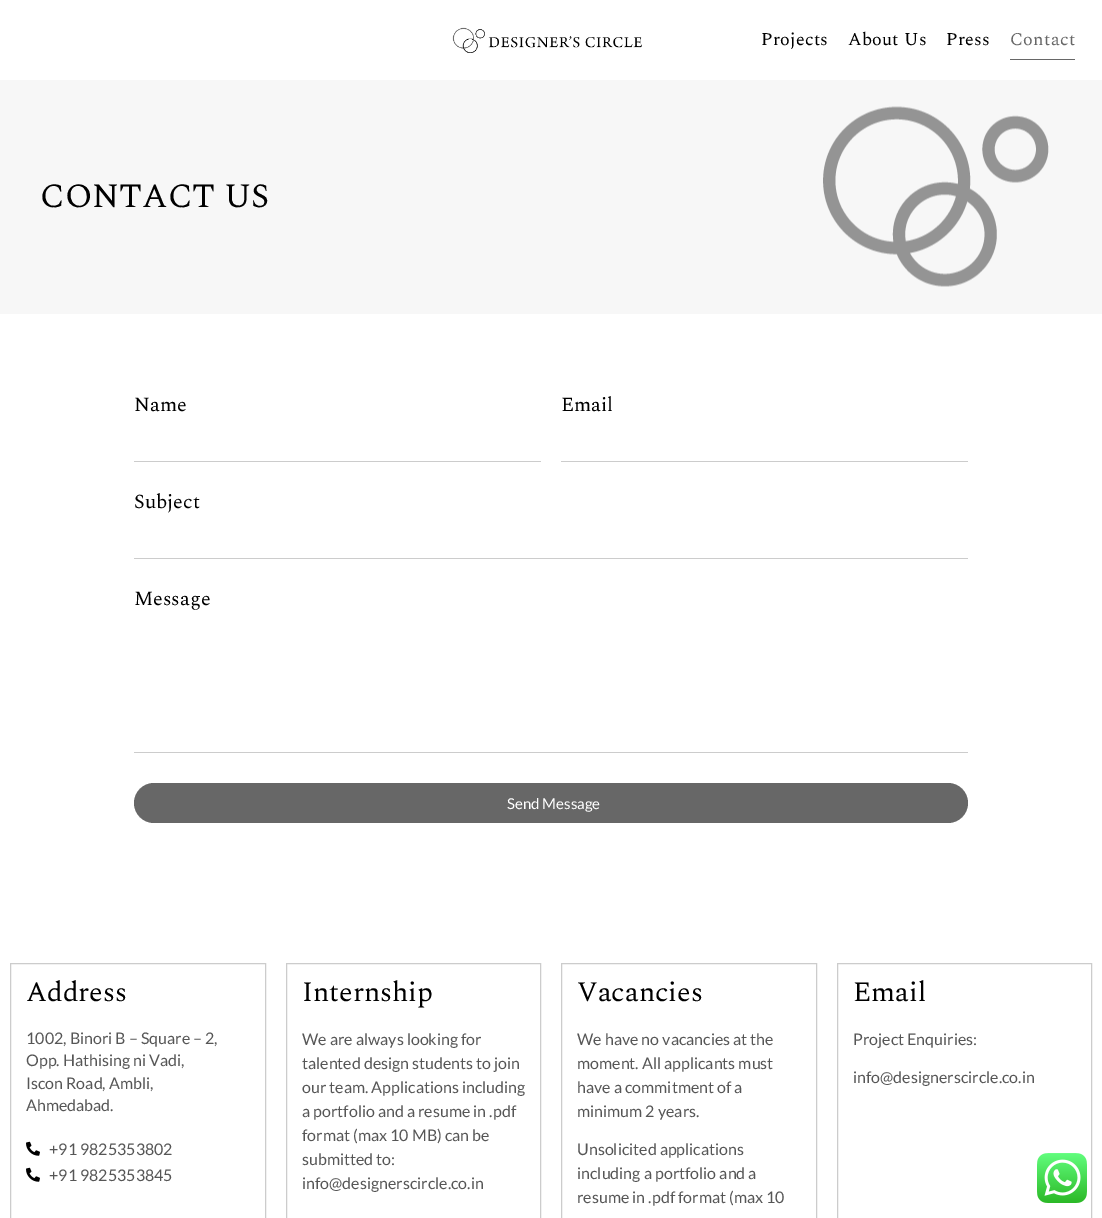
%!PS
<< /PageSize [1102 1218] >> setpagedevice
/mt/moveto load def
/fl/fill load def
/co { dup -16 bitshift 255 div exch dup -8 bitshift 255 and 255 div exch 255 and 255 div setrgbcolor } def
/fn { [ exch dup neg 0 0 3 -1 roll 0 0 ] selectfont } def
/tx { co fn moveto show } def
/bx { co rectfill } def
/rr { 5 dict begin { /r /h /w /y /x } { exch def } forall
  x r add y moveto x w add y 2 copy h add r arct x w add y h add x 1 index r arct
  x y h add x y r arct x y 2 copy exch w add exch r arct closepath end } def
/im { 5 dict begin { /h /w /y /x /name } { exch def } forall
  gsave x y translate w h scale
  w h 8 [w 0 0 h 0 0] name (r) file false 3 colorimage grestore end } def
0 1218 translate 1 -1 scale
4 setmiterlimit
0 0 1102 1218 16#FFFFFF bx
(media/1.raw) 452 27 190 26 im
1010 59 65 1 16#676767 bx
0 80 1102 234 16#F7F7F7 bx
(media/2.raw) 823 106 226 181 im
134 461 407 1 16#CCCCCC bx
561 461 407 1 16#CCCCCC bx
134 558 834 1 16#CCCCCC bx
134 752 834 1 16#CCCCCC bx
16#676767 co
134 783 834 40 20 rr fl
16#CCCCCC co
10.5 963.5 255 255 rectstroke
(media/3.raw) 26 1141 14 15 im
(media/3.raw) 26 1167 14 15 im
286.5 963.5 254 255 rectstroke
561.5 963.5 255 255 rectstroke
837.5 963.5 254 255 rectstroke
(media/4.raw) 1037 1153 50 50 im
/Spectral-Regular 18 fn
16#000000 co
761 45 mt .25 0 (Projects) ashow
848 45 mt .25 0 (About Us) ashow
946 45 mt .25 0 (Press) ashow
16#676767 co
1010 45 mt .25 0 (Contact) ashow
(CONTACT US) 40 207 /Spectral-Regular 34 16#000000 tx
(Name) 134 411 /Spectral-Regular 20 16#000000 tx
(Email) 561 411 /Spectral-Regular 20 16#000000 tx
(Subject) 134 508 /Spectral-Regular 20 16#000000 tx
(Message) 134 605 /Spectral-Regular 20 16#000000 tx
(Send Message) 507 809 /Lato-Regular 15 16#FFFFFF tx
(Address) 26 1001 /Spectral-Regular 28 16#000000 tx
(1002, Binori B – Square – 2,) 26 1044 /Lato-Regular 16 16#565656 tx
(Opp. Hathising ni Vadi,) 26 1066 /Lato-Regular 16 16#565656 tx
(Iscon Road, Ambli,) 26 1089 /Lato-Regular 16 16#565656 tx
(Ahmedabad.) 26 1111 /Lato-Regular 16 16#565656 tx
(+91 9825353802) 49 1155 /Lato-Regular 16 16#565656 tx
(+91 9825353845) 49 1181 /Lato-Regular 16 16#565656 tx
(Internship) 302 1001 /Spectral-Regular 28 16#000000 tx
(We are always looking for) 302 1045 /Lato-Regular 16 16#565656 tx
(talented design students to join) 302 1069 /Lato-Regular 16 16#565656 tx
(our team. Applications including) 302 1093 /Lato-Regular 16 16#565656 tx
(a portfolio and a resume in .pdf) 302 1117 /Lato-Regular 16 16#565656 tx
(format \(max 10 MB\) can be) 302 1141 /Lato-Regular 16 16#565656 tx
(submitted to:) 302 1165 /Lato-Regular 16 16#565656 tx
(info@designerscircle.co.in) 302 1189 /Lato-Regular 16 16#565656 tx
(Vacancies) 577 1001 /Spectral-Regular 28 16#000000 tx
(We have no vacancies at the) 577 1045 /Lato-Regular 16 16#565656 tx
(moment. All applicants must) 577 1069 /Lato-Regular 16 16#565656 tx
(have a commitment of a) 577 1093 /Lato-Regular 16 16#565656 tx
(minimum 2 years.) 577 1117 /Lato-Regular 16 16#565656 tx
(Unsolicited applications) 577 1155 /Lato-Regular 16 16#565656 tx
(including a portfolio and a) 577 1179 /Lato-Regular 16 16#565656 tx
(resume in .pdf format \(max 10) 577 1203 /Lato-Regular 16 16#565656 tx
(Email) 853 1001 /Spectral-Regular 28 16#000000 tx
(Project Enquiries:) 853 1045 /Lato-Regular 16 16#565656 tx
(info@designerscircle.co.in) 853 1083 /Lato-Regular 16 16#565656 tx
showpage
